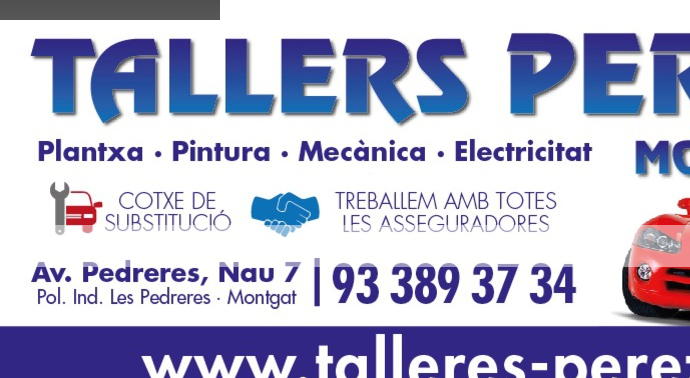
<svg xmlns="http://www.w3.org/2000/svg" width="690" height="378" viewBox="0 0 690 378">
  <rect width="100%" height="100%" fill="#e6e6e6"/>
  <image x="0" y="0" width="220" height="20" href="img/1.png"/>
  <path d="M220 0h470v20H220z" fill="#fff"/>
  <image x="0" y="20" width="690" height="358" href="img/2.png"/>
  <path d="M32 225h658v42H32z" fill="#ffffff80"/>
</svg>
